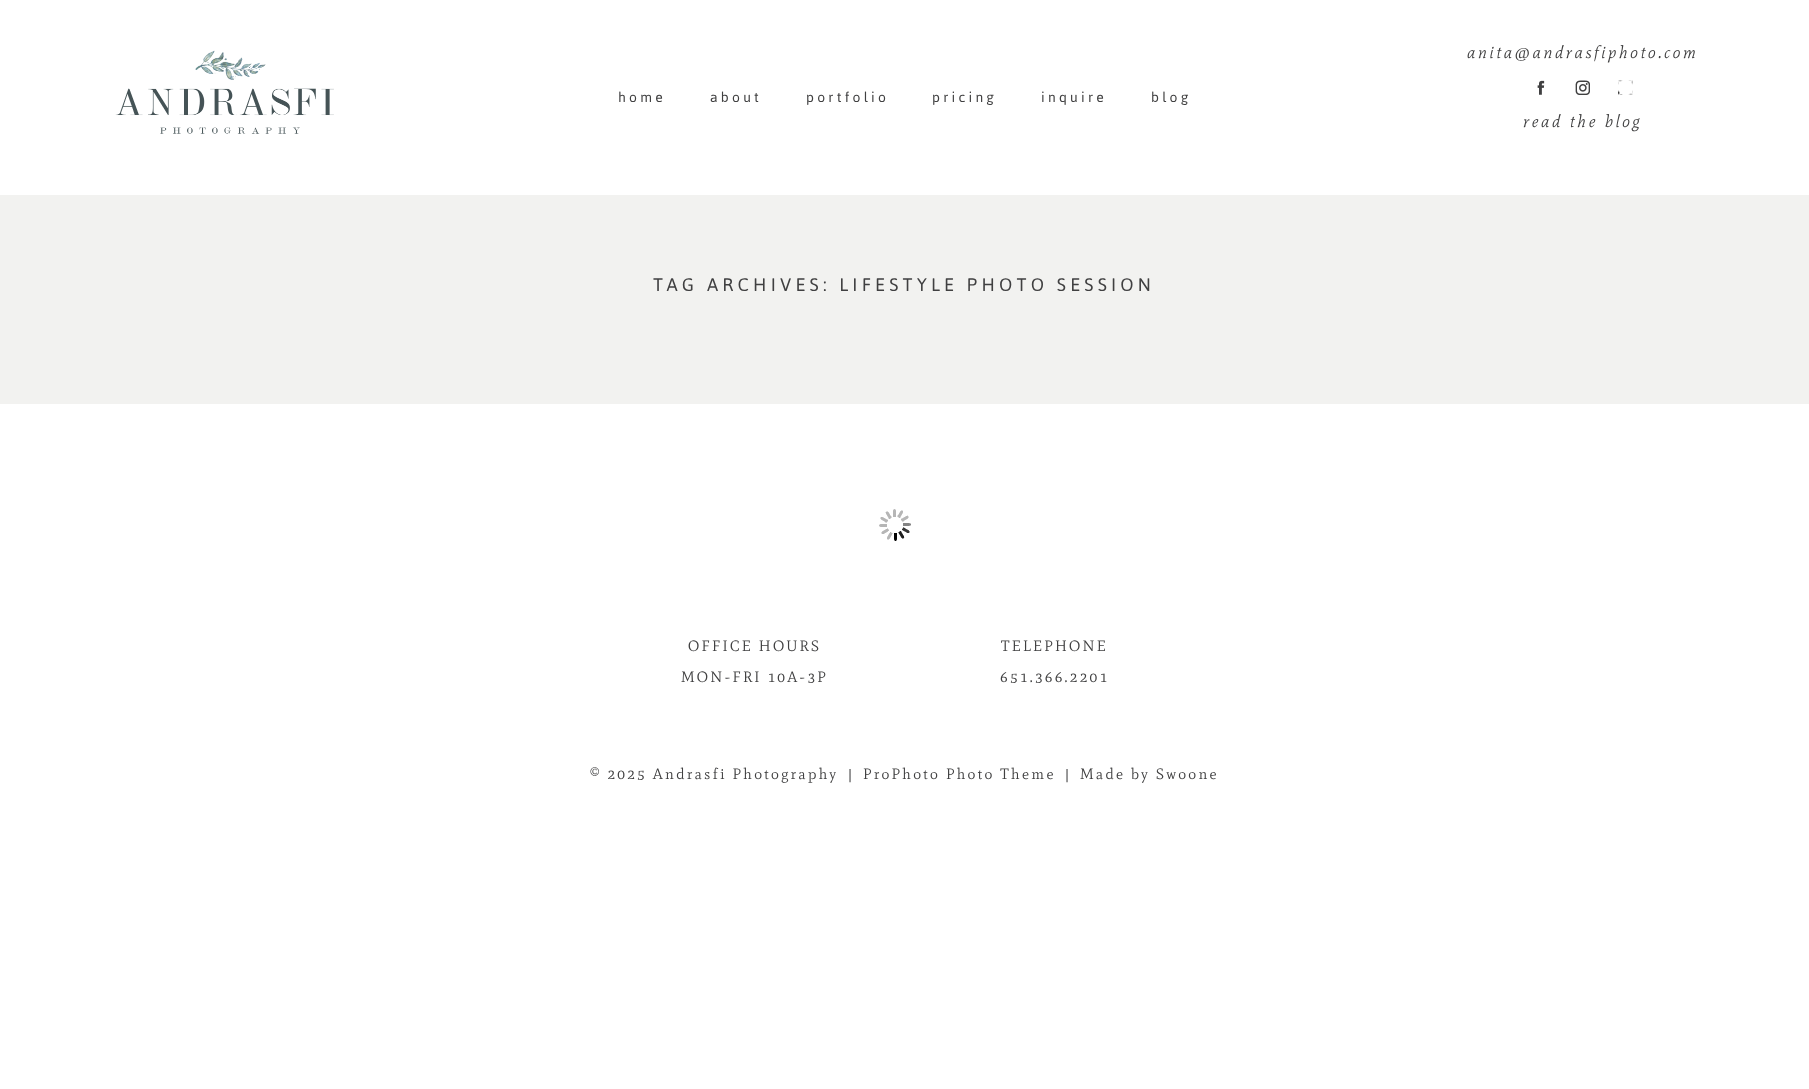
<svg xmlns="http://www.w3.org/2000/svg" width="1809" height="1089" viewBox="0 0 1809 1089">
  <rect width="100%" height="100%" fill="#fff"/>
  <image x="115" y="50" width="219" height="84" href="img/1.png"/>
  <image x="1537" y="80" width="8" height="15" href="img/2.png"/>
  <image x="1575" y="80" width="15" height="15" href="img/3.png"/>
  <image x="1618" y="80" width="15" height="15" href="img/4.png"/>
  <path d="M0 195h1809v209H0z" fill="#f2f2f0"/>
  <image x="879" y="509" width="32" height="32" href="img/5.png"/>
  <g font-family="Jaldi" font-size="16" letter-spacing="3.25" fill="#404041">
    <text x="618" y="102">home</text>
    <text x="710" y="102">about</text>
    <text x="806" y="102">portfolio</text>
    <text x="932" y="102">pricing</text>
    <text x="1041" y="102">inquire</text>
    <text x="1151" y="102">blog</text>
  </g>
  <g font-family="Mate" font-size="17" font-style="italic" letter-spacing="2.55" fill="#404041">
    <text x="1467" y="58">anita@andrasfiphoto.com</text>
    <text x="1523" y="127">read the blog</text>
  </g>
  <text x="653" y="291" font-family="Jaldi" font-size="21" letter-spacing="4.2" fill="#404041">TAG ARCHIVES: LIFESTYLE PHOTO SESSION</text>
  <g font-family="Mate" font-size="15" letter-spacing="2.25" fill="#404041">
    <text x="688" y="651">OFFICE HOURS</text>
    <text x="681" y="682">MON-FRI 10A-3P</text>
    <text x="1001" y="651">TELEPHONE</text>
    <text x="1000" y="682">651.366.2201</text>
    <text x="590" y="779">© 2025 Andrasfi Photography</text>
    <text x="848" y="779">|</text>
    <text x="863" y="779">ProPhoto Photo Theme</text>
    <text x="1065" y="779">|</text>
    <text x="1080" y="779">Made by Swoone</text>
  </g>
</svg>
